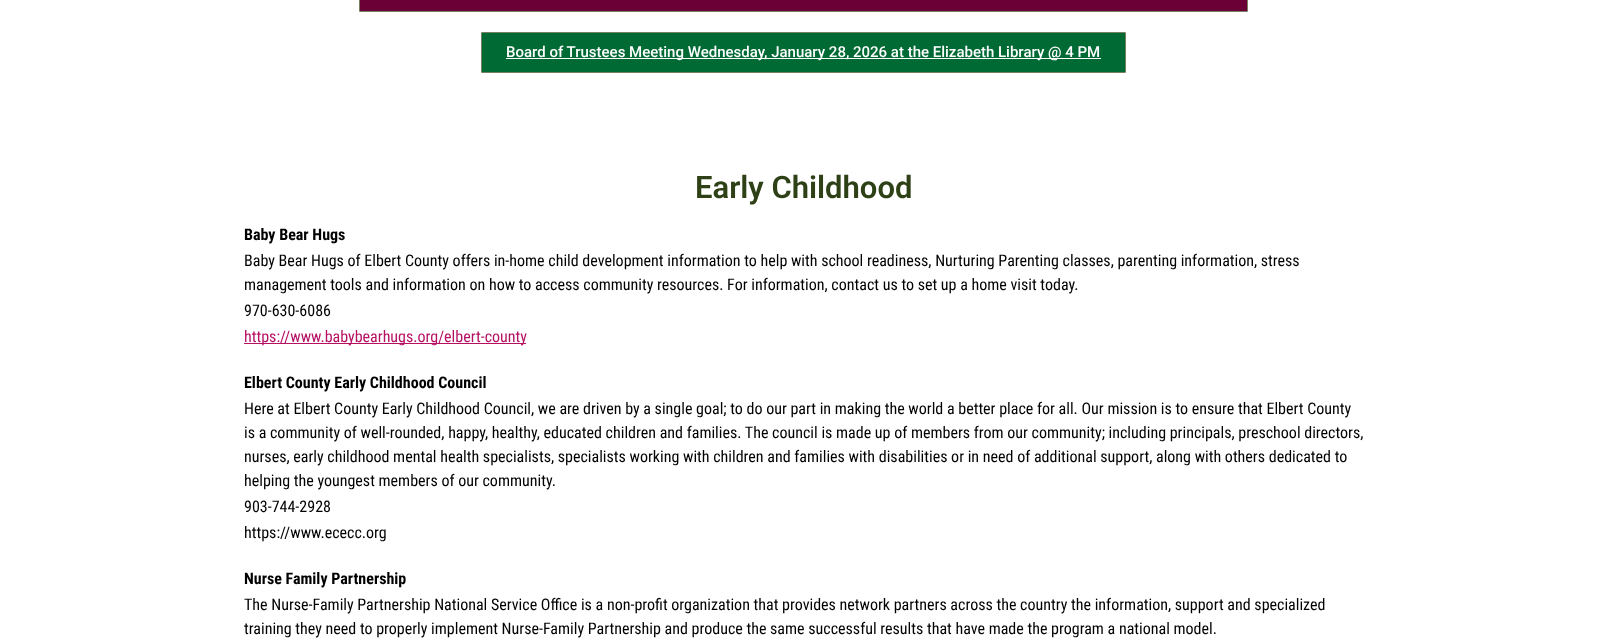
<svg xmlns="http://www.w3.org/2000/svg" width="1607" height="642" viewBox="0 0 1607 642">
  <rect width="100%" height="100%" fill="#fff"/>
  <rect x="359.5" y="-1.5" width="888" height="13" rx="0.5" fill="#6a0035" stroke="#758061"/>
  <rect x="481.5" y="32.5" width="644" height="40" rx="0.5" fill="#006a35" stroke="#758061"/>
  <path d="M506 58h595v1H506z" fill="#fff"/>
  <path d="M244 343h282v1H244z" fill="#b61063"/>
  <text x="506" y="57" font-family="Roboto" font-size="15" font-weight="500" fill="#fff">Board of Trustees Meeting Wednesday, January 28, 2026 at the Elizabeth Library @ 4 PM</text>
  <text x="695" y="198" font-family="Roboto" font-size="31" font-weight="600" fill="#2e4016">Early Childhood</text>
  <text x="244" y="240" font-family="Roboto Condensed" font-size="16" font-weight="bold" fill="#000">Baby Bear Hugs</text>
  <g font-family="Roboto Condensed" font-size="16" fill="#000">
    <text x="244" y="266">Baby Bear Hugs of Elbert County offers in-home child development information to help with school readiness, Nurturing Parenting classes, parenting information, stress</text>
    <text x="244" y="290">management tools and information on how to access community resources. For information, contact us to set up a home visit today.</text>
    <text x="244" y="316">970-630-6086</text>
  </g>
  <text x="244" y="342" font-family="Roboto Condensed" font-size="16" fill="#b61063">https://www.babybearhugs.org/elbert-county</text>
  <text x="244" y="388" font-family="Roboto Condensed" font-size="16" font-weight="bold" fill="#000">Elbert County Early Childhood Council</text>
  <g font-family="Roboto Condensed" font-size="16" fill="#000">
    <text x="244" y="414">Here at Elbert County Early Childhood Council, we are driven by a single goal; to do our part in making the world a better place for all. Our mission is to ensure that Elbert County</text>
    <text x="244" y="438">is a community of well-rounded, happy, healthy, educated children and families. The council is made up of members from our community; including principals, preschool directors,</text>
    <text x="244" y="462">nurses, early childhood mental health specialists, specialists working with children and families with disabilities or in need of additional support, along with others dedicated to</text>
    <text x="244" y="486">helping the youngest members of our community.</text>
    <text x="244" y="512">903-744-2928</text>
    <text x="244" y="538">https://www.ececc.org</text>
  </g>
  <text x="244" y="584" font-family="Roboto Condensed" font-size="16" font-weight="bold" fill="#000">Nurse Family Partnership</text>
  <g font-family="Roboto Condensed" font-size="16" fill="#000">
    <text x="244" y="610">The Nurse-Family Partnership National Service Office is a non-profit organization that provides network partners across the country the information, support and specialized</text>
    <text x="244" y="634">training they need to properly implement Nurse-Family Partnership and produce the same successful results that have made the program a national model.</text>
  </g>
</svg>
